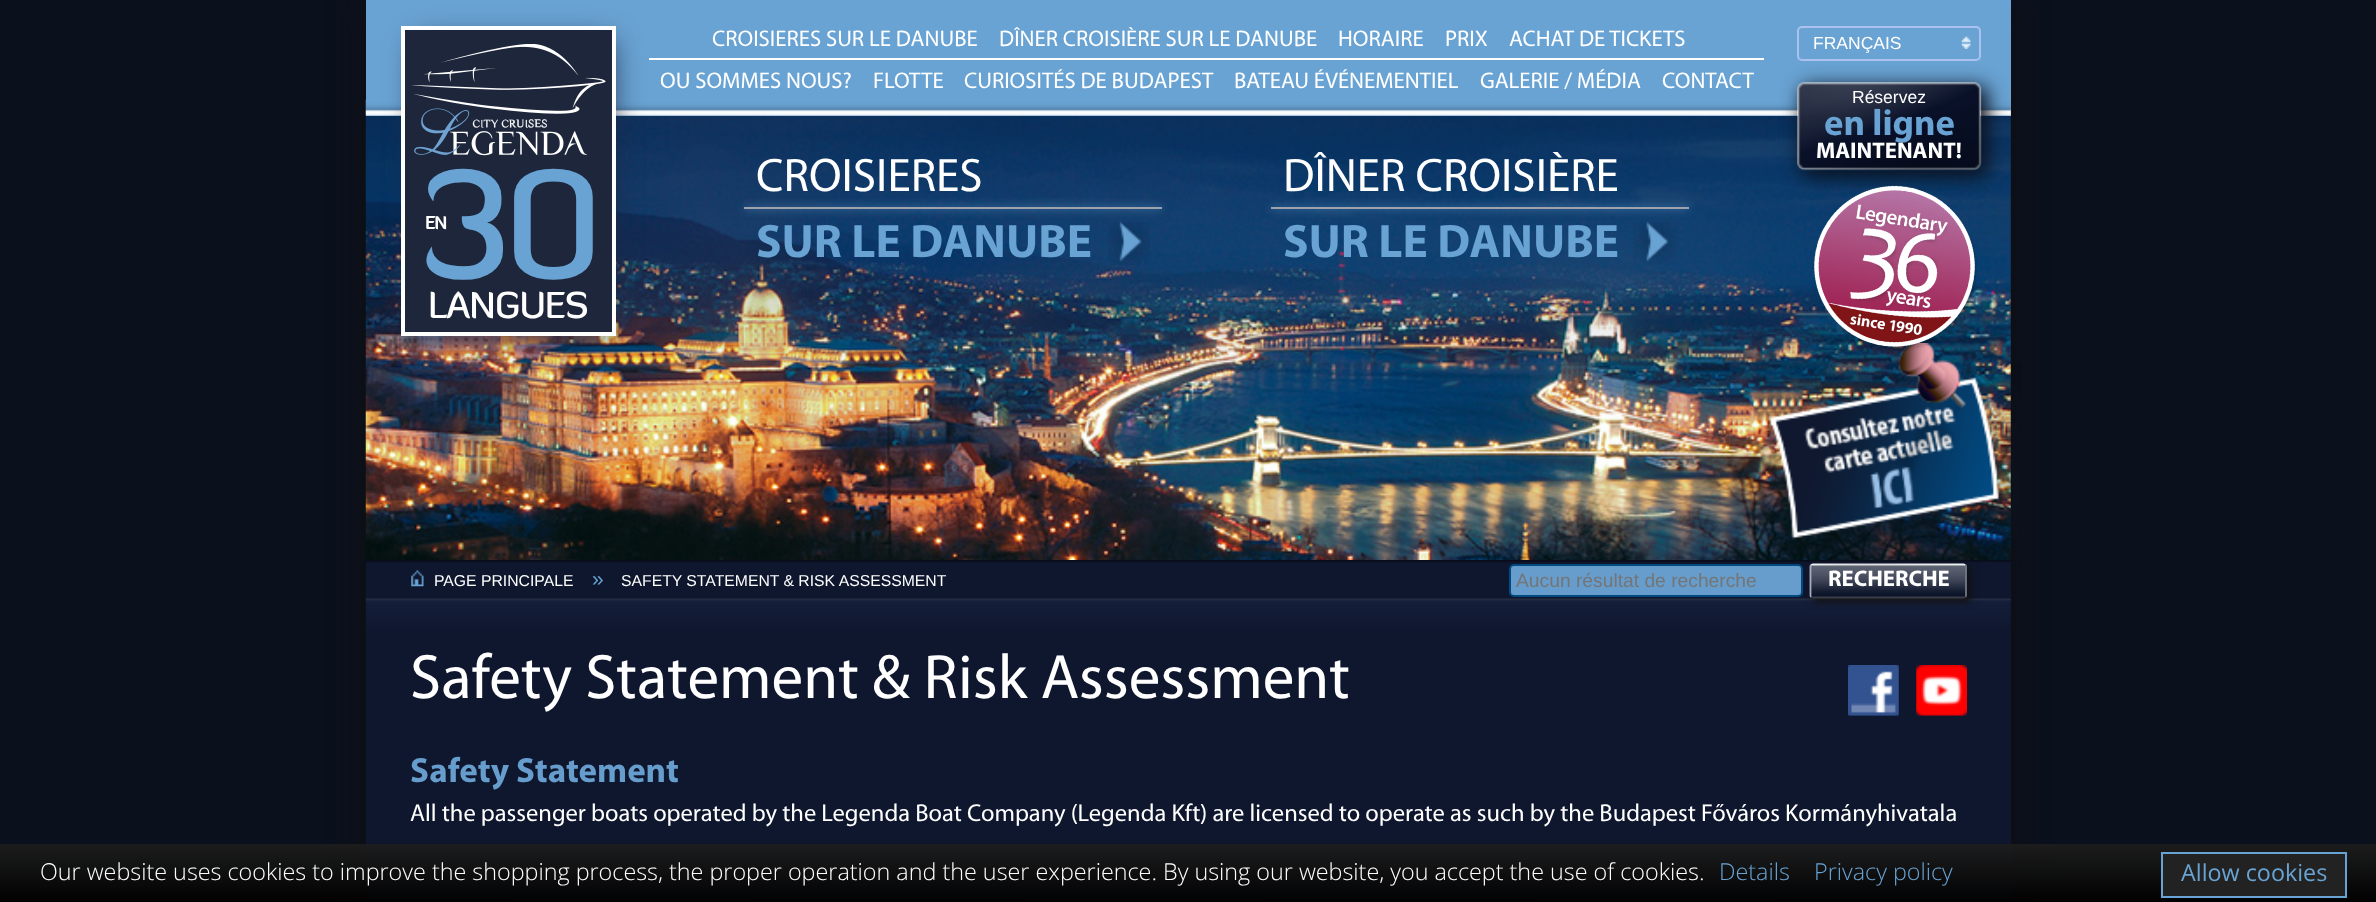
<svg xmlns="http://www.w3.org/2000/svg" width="2376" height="902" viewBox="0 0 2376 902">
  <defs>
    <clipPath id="clip1"><path d="M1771 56H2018V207H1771ZM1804 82H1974C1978 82 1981 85 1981 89V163C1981 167 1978 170 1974 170H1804C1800 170 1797 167 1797 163V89C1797 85 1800 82 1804 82Z" clip-rule="evenodd"/></clipPath>
    <linearGradient id="g1" gradientUnits="userSpaceOnUse" x1="1194" y1="843" x2="1194" y2="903"><stop offset="0" stop-color="#1e1e1e" stop-opacity="0.95"/><stop offset="1" stop-color="#000" stop-opacity="0.95"/></linearGradient>
  </defs>
  <rect width="100%" height="100%" fill="#0b101d"/>
  <path d="M366 0h1645v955H366z" fill="#0f0f0f" filter="blur(17.5px)"/>
  <path d="M366 116h1645v786H366z" fill="#0f172e"/>
  <image x="365" y="115" width="1646" height="445" href="img/5.png"/>
  <path d="M366 0h1645v116H366z" fill="#69a3d3"/>
  <image x="365" y="99" width="1646" height="17" href="img/1.png"/>
  <path d="M649 58h1115v2H649z" fill="#fff"/>
  <g clip-path="url(#clip1)">
    <rect x="1801" y="86" width="187" height="91" rx="9" fill="#0b101d" filter="blur(9.5px)"/>
  </g>
  <rect x="1798" y="27" width="182" height="33" rx="4" fill="none" stroke="#adc1f1" stroke-width="2"/>
  <image x="1961" y="36" width="10" height="13" href="img/2.png"/>
  <image x="1797" y="82" width="185" height="89" href="img/3.png"/>
  <path d="M417 42h194v289H417z" fill="#1e2a48" filter="blur(15px)"/>
  <path d="M403 28h211v306H403z" fill="#1d263a" stroke="#fff" stroke-width="4"/>
  <image x="411" y="44" width="195" height="112" href="img/4.png"/>
  <path d="M744 207h418v2H744z" fill="#69a3d3" filter="blur(4.5px)"/>
  <path d="M744 207h418v2H744z" fill="#9da2ac"/>
  <image x="1108" y="222" width="42" height="43" href="img/6.png"/>
  <path d="M1271 207h418v2H1271z" fill="#69a3d3" filter="blur(4.5px)"/>
  <path d="M1271 207h418v2H1271z" fill="#9da2ac"/>
  <image x="1633" y="222" width="44" height="43" href="img/7.png"/>
  <image x="365" y="560" width="1646" height="75" href="img/10.png"/>
  <rect x="1510" y="565" width="292" height="31" rx="4" fill="#669dcd" stroke="#004a80" stroke-width="2"/>
  <rect x="1813" y="567" width="158" height="35" rx="4" fill="#111" filter="blur(3.5px)"/>
  <image x="1809" y="564" width="158" height="34" href="img/12.png"/>
  <path d="M1811 565L1813 564.5H1963.5L1965.5 565" fill="none" stroke="#fff" stroke-width="1.8"/>
  <path d="M1965.5 565C1966 565.5 1966 566.5 1966 567V595C1966 595.5 1966 596.5 1965.5 597" fill="none" stroke="#727788" stroke-width="1.8"/>
  <path d="M1965.5 597L1963.5 597.5H1813L1811 597" fill="none" stroke="#3a3e49" stroke-width="1.8"/>
  <path d="M1811 597C1810.5 596.5 1810.5 595.5 1810.5 595V567C1810.5 566.5 1810.5 565.5 1811 565" fill="none" stroke="#a7adbc" stroke-width="1.8"/>
  <image x="1769" y="343" width="253" height="223" href="img/9.png"/>
  <image x="1814" y="185" width="163" height="166" href="img/8.png"/>
  <image x="411" y="570" width="13" height="17" href="img/11.png"/>
  <image x="1848" y="665" width="51" height="51" href="img/13.png"/>
  <image x="1916" y="665" width="51" height="51" href="img/14.png"/>
  <path d="M0 844h2376v58H0z" fill="url(#g1)"/>
  <path d="M2162 853h184v44H2162z" fill="#222" stroke="#69a3d3" stroke-width="2"/>
  <g font-family="Myriad" font-size="22.75" fill="#fff">
    <text x="712" y="46">CROISIERES SUR LE DANUBE</text>
    <text x="999" y="46">DÎNER CROISIÈRE SUR LE DANUBE</text>
    <text x="1338" y="46">HORAIRE</text>
    <text x="1445" y="46">PRIX</text>
    <text x="1509" y="46">ACHAT DE TICKETS</text>
    <text x="660" y="88">OU SOMMES NOUS?</text>
    <text x="873" y="88">FLOTTE</text>
    <text x="964" y="88">CURIOSITÉS DE BUDAPEST</text>
    <text x="1234" y="88">BATEAU ÉVÉNEMENTIEL</text>
    <text x="1480" y="88">GALERIE / MÉDIA</text>
    <text x="1662" y="88">CONTACT</text>
  </g>
  <g font-family="Liberation Sans" font-size="17.5" fill="#fff">
    <text x="1813" y="49">FRANÇAIS</text>
    <text x="1852" y="103">Réservez</text>
  </g>
  <text x="1824" y="135" font-family="Myriad" font-size="36.75" font-weight="bold" fill="#69a3d3">en ligne</text>
  <text x="1816" y="158" font-family="Myriad" font-size="22.75" font-weight="bold" fill="#fff">MAINTENANT!</text>
  <text x="418" y="278" font-family="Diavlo" font-size="152" font-weight="500" letter-spacing="-7" fill="#69a3d3">30</text>
  <text x="425" y="229" font-family="Diavlo" font-size="17.5" font-weight="bold" letter-spacing="-1" fill="#fff">EN</text>
  <text x="428" y="318" font-family="Diavlo" font-size="36.75" font-weight="500" letter-spacing="-1" fill="#fff">LANGUES</text>
  <text x="756" y="191" font-family="Myriad" font-size="47.25" fill="#fff">CROISIERES</text>
  <text x="756" y="257" font-family="Myriad" font-size="47.25" font-weight="bold" fill="#69a3d3">SUR LE DANUBE</text>
  <text x="1283" y="191" font-family="Myriad" font-size="47.25" fill="#fff">DÎNER CROISIÈRE</text>
  <text x="1283" y="257" font-family="Myriad" font-size="47.25" font-weight="bold" fill="#69a3d3">SUR LE DANUBE</text>
  <text x="434" y="586" font-family="Liberation Sans" font-size="15.75" fill="#fff">PAGE PRINCIPALE</text>
  <text x="592" y="586" font-family="Liberation Sans" font-size="21" fill="#69a3d3">»</text>
  <text x="621" y="586" font-family="Liberation Sans" font-size="15.75" fill="#fff">SAFETY STATEMENT &amp; RISK ASSESSMENT</text>
  <text x="1516" y="587" font-family="Liberation Sans" font-size="19.25" fill="#757575">Aucun résultat de recherche</text>
  <text x="1828" y="586" font-family="Myriad" font-size="22.75" font-weight="bold" fill="#fff">RECHERCHE</text>
  <text x="410" y="698" font-family="Myriad" font-size="63" fill="#fff">Safety Statement &amp; Risk Assessment</text>
  <text x="410" y="782" font-family="Myriad" font-size="35" font-weight="bold" fill="#669dcd">Safety Statement</text>
  <text x="410" y="821" font-family="Myriad" font-size="24.5" fill="#fff">All the passenger boats operated by the Legenda Boat Company (Legenda Kft) are licensed to operate as such by the Budapest Főváros Kormányhivatala</text>
  <text x="40" y="880" font-family="Open Sans" font-size="23.33" font-weight="300" fill="#fff">Our website uses cookies to improve the shopping process, the proper operation and the user experience. By using our website, you accept the use of cookies.</text>
  <g font-family="Open Sans" font-size="23.33" font-weight="300" fill="#69a3d3">
    <text x="1719" y="880">Details</text>
    <text x="1814" y="880">Privacy policy</text>
  </g>
  <text x="2181" y="881" font-family="Open Sans" font-size="23.33" fill="#69a3d3">Allow cookies</text>
</svg>
